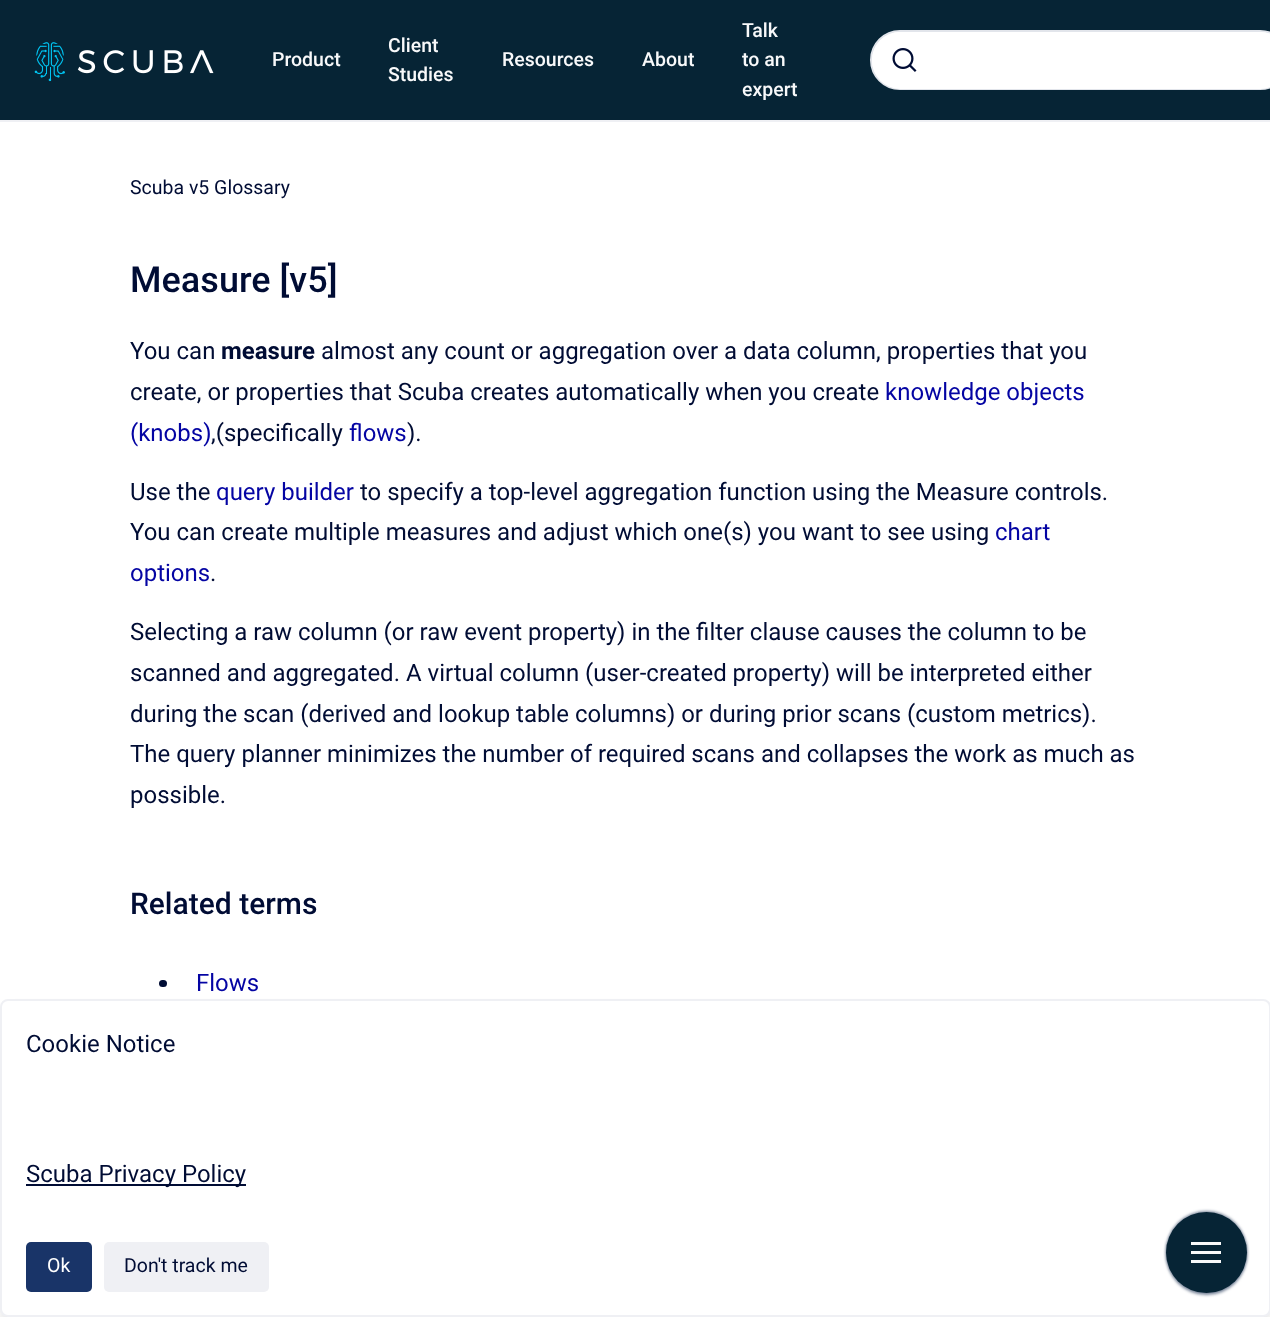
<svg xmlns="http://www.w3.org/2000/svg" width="1270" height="1317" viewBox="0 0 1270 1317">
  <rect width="100%" height="100%" fill="#fff"/>
  <path d="M0 0h1270v120H0z" fill="#062435"/>
  <path d="M0 120h1270v2H0z" fill="#eff0f4"/>
  <image x="34" y="42" width="180" height="40" href="img/1.png"/>
  <rect x="871" y="31" width="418" height="58" rx="29" fill="#fff" stroke="#e2e5eb" stroke-width="2"/>
  <rect x="872" y="32" width="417" height="57" rx="28.5" fill="#fff"/>
  <image x="892" y="48" width="25" height="24" href="img/2.png"/>
  <rect x="159" y="980" width="8" height="7" rx="3.5" fill="#000c34"/>
  <rect x="3" y="1008" width="1265" height="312" rx="5" fill="#0000000d" filter="blur(4.5px)"/>
  <rect x="5" y="1019" width="1261" height="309" rx="3" fill="#0000001a" filter="blur(11px)"/>
  <rect x="1" y="1000" width="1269" height="316" rx="7" fill="#fff" stroke="#eff0f4" stroke-width="2"/>
  <path d="M26 1184h220v2H26z" fill="#000c34"/>
  <rect x="26" y="1242" width="66" height="50" rx="5" fill="#193468"/>
  <rect x="104" y="1242" width="165" height="50" rx="5" fill="#eff0f4"/>
  <rect x="1166" y="1211" width="81" height="81" rx="40.5" fill="#7a869a" filter="blur(1.5px)"/>
  <rect x="1166" y="1214" width="81" height="81" rx="40.5" fill="#7a869a" filter="blur(1.5px)"/>
  <circle cx="1206.5" cy="1252.5" r="40.5" fill="#062435"/>
  <path d="M1191 1242h30v3H1191z" fill="#f8f9fa"/>
  <path d="M1191 1251h30v3H1191z" fill="#f8f9fa"/>
  <path d="M1191 1260h30v3H1191z" fill="#f8f9fa"/>
  <g font-family="Roboto" font-size="19.5" font-weight="500" fill="#f8f9fa">
    <text x="272" y="66">Product</text>
    <text x="388" y="52">Client</text>
    <text x="388" y="81">Studies</text>
    <text x="502" y="66">Resources</text>
    <text x="642" y="66">About</text>
    <text x="742" y="37">Talk</text>
    <text x="742" y="66">to an</text>
    <text x="742" y="96">expert</text>
  </g>
  <text x="130" y="194" font-family="Roboto" font-size="19.5" fill="#000c34">Scuba v5 Glossary</text>
  <text x="130" y="292" font-family="Roboto" font-size="36" font-weight="500" fill="#000c34">Measure [v5]</text>
  <text x="130" y="359" font-family="Roboto" font-size="24" fill="#000c34">You can</text>
  <text x="221" y="359" font-family="Roboto" font-size="24" font-weight="bold" fill="#000c34">measure</text>
  <g font-family="Roboto" font-size="24" fill="#000c34">
    <text x="321" y="359">almost any count or aggregation over a data column, properties that you</text>
    <text x="130" y="400">create, or properties that Scuba creates automatically when you create</text>
  </g>
  <g font-family="Roboto" font-size="24" fill="#0404a3">
    <text x="885" y="400">knowledge objects</text>
    <text x="130" y="441">(knobs)</text>
  </g>
  <text x="211" y="441" font-family="Roboto" font-size="24" fill="#000c34">,(specifically</text>
  <text x="349" y="441" font-family="Roboto" font-size="24" fill="#0404a3">flows</text>
  <g font-family="Roboto" font-size="24" fill="#000c34">
    <text x="407" y="441">).</text>
    <text x="130" y="500">Use the</text>
  </g>
  <text x="216" y="500" font-family="Roboto" font-size="24" fill="#0404a3">query builder</text>
  <g font-family="Roboto" font-size="24" fill="#000c34">
    <text x="360" y="500">to specify a top-level aggregation function using the Measure controls.</text>
    <text x="130" y="540">You can create multiple measures and adjust which one(s) you want to see using</text>
  </g>
  <g font-family="Roboto" font-size="24" fill="#0404a3">
    <text x="995" y="540">chart</text>
    <text x="130" y="581">options</text>
  </g>
  <g font-family="Roboto" font-size="24" fill="#000c34">
    <text x="210" y="581">.</text>
    <text x="130" y="640">Selecting a raw column (or raw event property) in the filter clause causes the column to be</text>
    <text x="130" y="681">scanned and aggregated. A virtual column (user-created property) will be interpreted either</text>
    <text x="130" y="722">during the scan (derived and lookup table columns) or during prior scans (custom metrics).</text>
    <text x="130" y="762">The query planner minimizes the number of required scans and collapses the work as much as</text>
    <text x="130" y="803">possible.</text>
  </g>
  <text x="130" y="914" font-family="Roboto" font-size="30" font-weight="500" fill="#000c34">Related terms</text>
  <text x="196" y="991" font-family="Roboto" font-size="24" fill="#0404a3">Flows</text>
  <g font-family="Roboto" font-size="24" fill="#000c34">
    <text x="26" y="1052">Cookie Notice</text>
    <text x="26" y="1182">Scuba Privacy Policy</text>
  </g>
  <text x="47" y="1272" font-family="Roboto" font-size="19.5" fill="#fff">Ok</text>
  <text x="124" y="1272" font-family="Roboto" font-size="19.5" fill="#000c34">Don't track me</text>
</svg>
